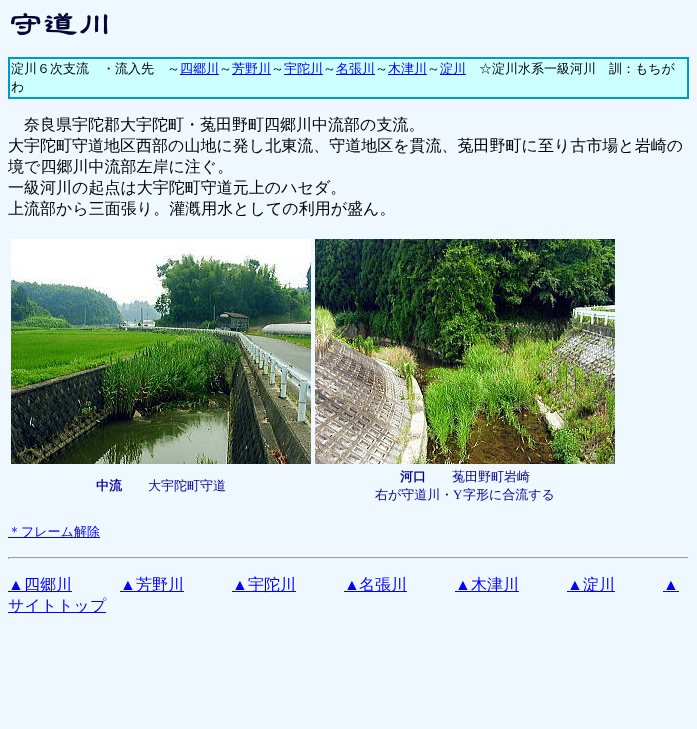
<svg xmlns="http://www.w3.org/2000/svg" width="697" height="729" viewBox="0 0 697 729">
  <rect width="100%" height="100%" fill="#f0f8ff"/>
  <image x="11" y="12" width="97" height="23" href="img/1.png"/>
  <path d="M8 57h681v42H8z" fill="#09c"/>
  <path d="M10 59h677v38H10z" fill="#cff"/>
  <path d="M180 74h39v1H180z" fill="#00f"/>
  <path d="M232 74h39v1H232z" fill="#00f"/>
  <path d="M284 74h39v1H284z" fill="#00f"/>
  <path d="M336 74h39v1H336z" fill="#00f"/>
  <path d="M388 74h39v1H388z" fill="#00f"/>
  <path d="M440 74h26v1H440z" fill="#00f"/>
  <image x="11" y="239" width="300" height="225" href="img/2.png"/>
  <image x="315" y="239" width="300" height="225" href="img/3.png"/>
  <path d="M8 537h92v1H8z" fill="#00f"/>
  <path d="M8 557h681v1H8z" fill="#9f9f9f"/>
  <path d="M688 557h1v2H688z" fill="#eee"/>
  <path d="M8 558h681v1H8z" fill="#eee"/>
  <path d="M8 557h1v2H8z" fill="#9f9f9f"/>
  <path d="M8 591h64v1H8z" fill="#00f"/>
  <path d="M120 591h64v1H120z" fill="#00f"/>
  <path d="M232 591h64v1H232z" fill="#00f"/>
  <path d="M344 591h63v1H344z" fill="#00f"/>
  <path d="M455 591h64v1H455z" fill="#00f"/>
  <path d="M567 591h48v1H567z" fill="#00f"/>
  <path d="M663 591h16v1H663z" fill="#00f"/>
  <path d="M8 612h98v1H8z" fill="#00f"/>
  <text x="11" y="73" font-family="WenQuanYi Zen Hei" font-size="13" font-weight="500" fill="#000">淀川６次支流　・流入先　～</text>
  <text x="180" y="73" font-family="WenQuanYi Zen Hei" font-size="13" font-weight="500" fill="#00f">四郷川</text>
  <text x="219" y="73" font-family="WenQuanYi Zen Hei" font-size="13" font-weight="500" fill="#000">～</text>
  <text x="232" y="73" font-family="WenQuanYi Zen Hei" font-size="13" font-weight="500" fill="#00f">芳野川</text>
  <text x="271" y="73" font-family="WenQuanYi Zen Hei" font-size="13" font-weight="500" fill="#000">～</text>
  <text x="284" y="73" font-family="WenQuanYi Zen Hei" font-size="13" font-weight="500" fill="#00f">宇陀川</text>
  <text x="323" y="73" font-family="WenQuanYi Zen Hei" font-size="13" font-weight="500" fill="#000">～</text>
  <text x="336" y="73" font-family="WenQuanYi Zen Hei" font-size="13" font-weight="500" fill="#00f">名張川</text>
  <text x="375" y="73" font-family="WenQuanYi Zen Hei" font-size="13" font-weight="500" fill="#000">～</text>
  <text x="388" y="73" font-family="WenQuanYi Zen Hei" font-size="13" font-weight="500" fill="#00f">木津川</text>
  <text x="427" y="73" font-family="WenQuanYi Zen Hei" font-size="13" font-weight="500" fill="#000">～</text>
  <text x="440" y="73" font-family="WenQuanYi Zen Hei" font-size="13" font-weight="500" fill="#00f">淀川</text>
  <g font-family="WenQuanYi Zen Hei" font-size="13" font-weight="500" fill="#000">
    <text x="479" y="73">☆淀川水系一級河川　訓：もちが</text>
    <text x="11" y="91">わ</text>
  </g>
  <g font-family="WenQuanYi Zen Hei" font-size="16" font-weight="500" fill="#000">
    <text x="24" y="130">奈良県宇陀郡大宇陀町・菟田野町四郷川中流部の支流。</text>
    <text x="8" y="151">大宇陀町守道地区西部の山地に発し北東流、守道地区を貫流、菟田野町に至り古市場と岩崎の</text>
    <text x="8" y="172">境で四郷川中流部左岸に注ぐ。</text>
    <text x="8" y="193">一級河川の起点は大宇陀町守道元上のハセダ。</text>
    <text x="8" y="214">上流部から三面張り。灌漑用水としての利用が盛ん。</text>
  </g>
  <text x="96" y="490" font-family="WenQuanYi Zen Hei" font-size="13" font-weight="bold" fill="#009">中流</text>
  <text x="148" y="490" font-family="WenQuanYi Zen Hei" font-size="13" font-weight="500" fill="#009">大宇陀町守道</text>
  <text x="400" y="481" font-family="WenQuanYi Zen Hei" font-size="13" font-weight="bold" fill="#009">河口</text>
  <g font-family="WenQuanYi Zen Hei" font-size="13" font-weight="500" fill="#009">
    <text x="452" y="481">菟田野町岩崎</text>
    <text x="375" y="499">右が守道川・</text>
  </g>
  <text x="453" y="499" font-family="Liberation Serif" font-size="13" fill="#009">Y</text>
  <text x="463" y="499" font-family="WenQuanYi Zen Hei" font-size="13" font-weight="500" fill="#009">字形に合流する</text>
  <text x="8" y="536" font-family="WenQuanYi Zen Hei" font-size="13" font-weight="500" fill="#00f">＊フレーム解除</text>
  <text x="8" y="590" font-family="Liberation Serif" font-size="16" fill="#00f">▲</text>
  <text x="24" y="590" font-family="WenQuanYi Zen Hei" font-size="16" font-weight="500" fill="#00f">四郷川</text>
  <text x="120" y="590" font-family="Liberation Serif" font-size="16" fill="#00f">▲</text>
  <text x="136" y="590" font-family="WenQuanYi Zen Hei" font-size="16" font-weight="500" fill="#00f">芳野川</text>
  <text x="232" y="590" font-family="Liberation Serif" font-size="16" fill="#00f">▲</text>
  <text x="248" y="590" font-family="WenQuanYi Zen Hei" font-size="16" font-weight="500" fill="#00f">宇陀川</text>
  <text x="344" y="590" font-family="Liberation Serif" font-size="16" fill="#00f">▲</text>
  <text x="359" y="590" font-family="WenQuanYi Zen Hei" font-size="16" font-weight="500" fill="#00f">名張川</text>
  <text x="455" y="590" font-family="Liberation Serif" font-size="16" fill="#00f">▲</text>
  <text x="471" y="590" font-family="WenQuanYi Zen Hei" font-size="16" font-weight="500" fill="#00f">木津川</text>
  <text x="567" y="590" font-family="Liberation Serif" font-size="16" fill="#00f">▲</text>
  <text x="583" y="590" font-family="WenQuanYi Zen Hei" font-size="16" font-weight="500" fill="#00f">淀川</text>
  <text x="663" y="590" font-family="Liberation Serif" font-size="16" fill="#00f">▲</text>
  <text x="8" y="611" font-family="WenQuanYi Zen Hei" font-size="16" font-weight="500" fill="#00f">サイトトップ</text>
</svg>
